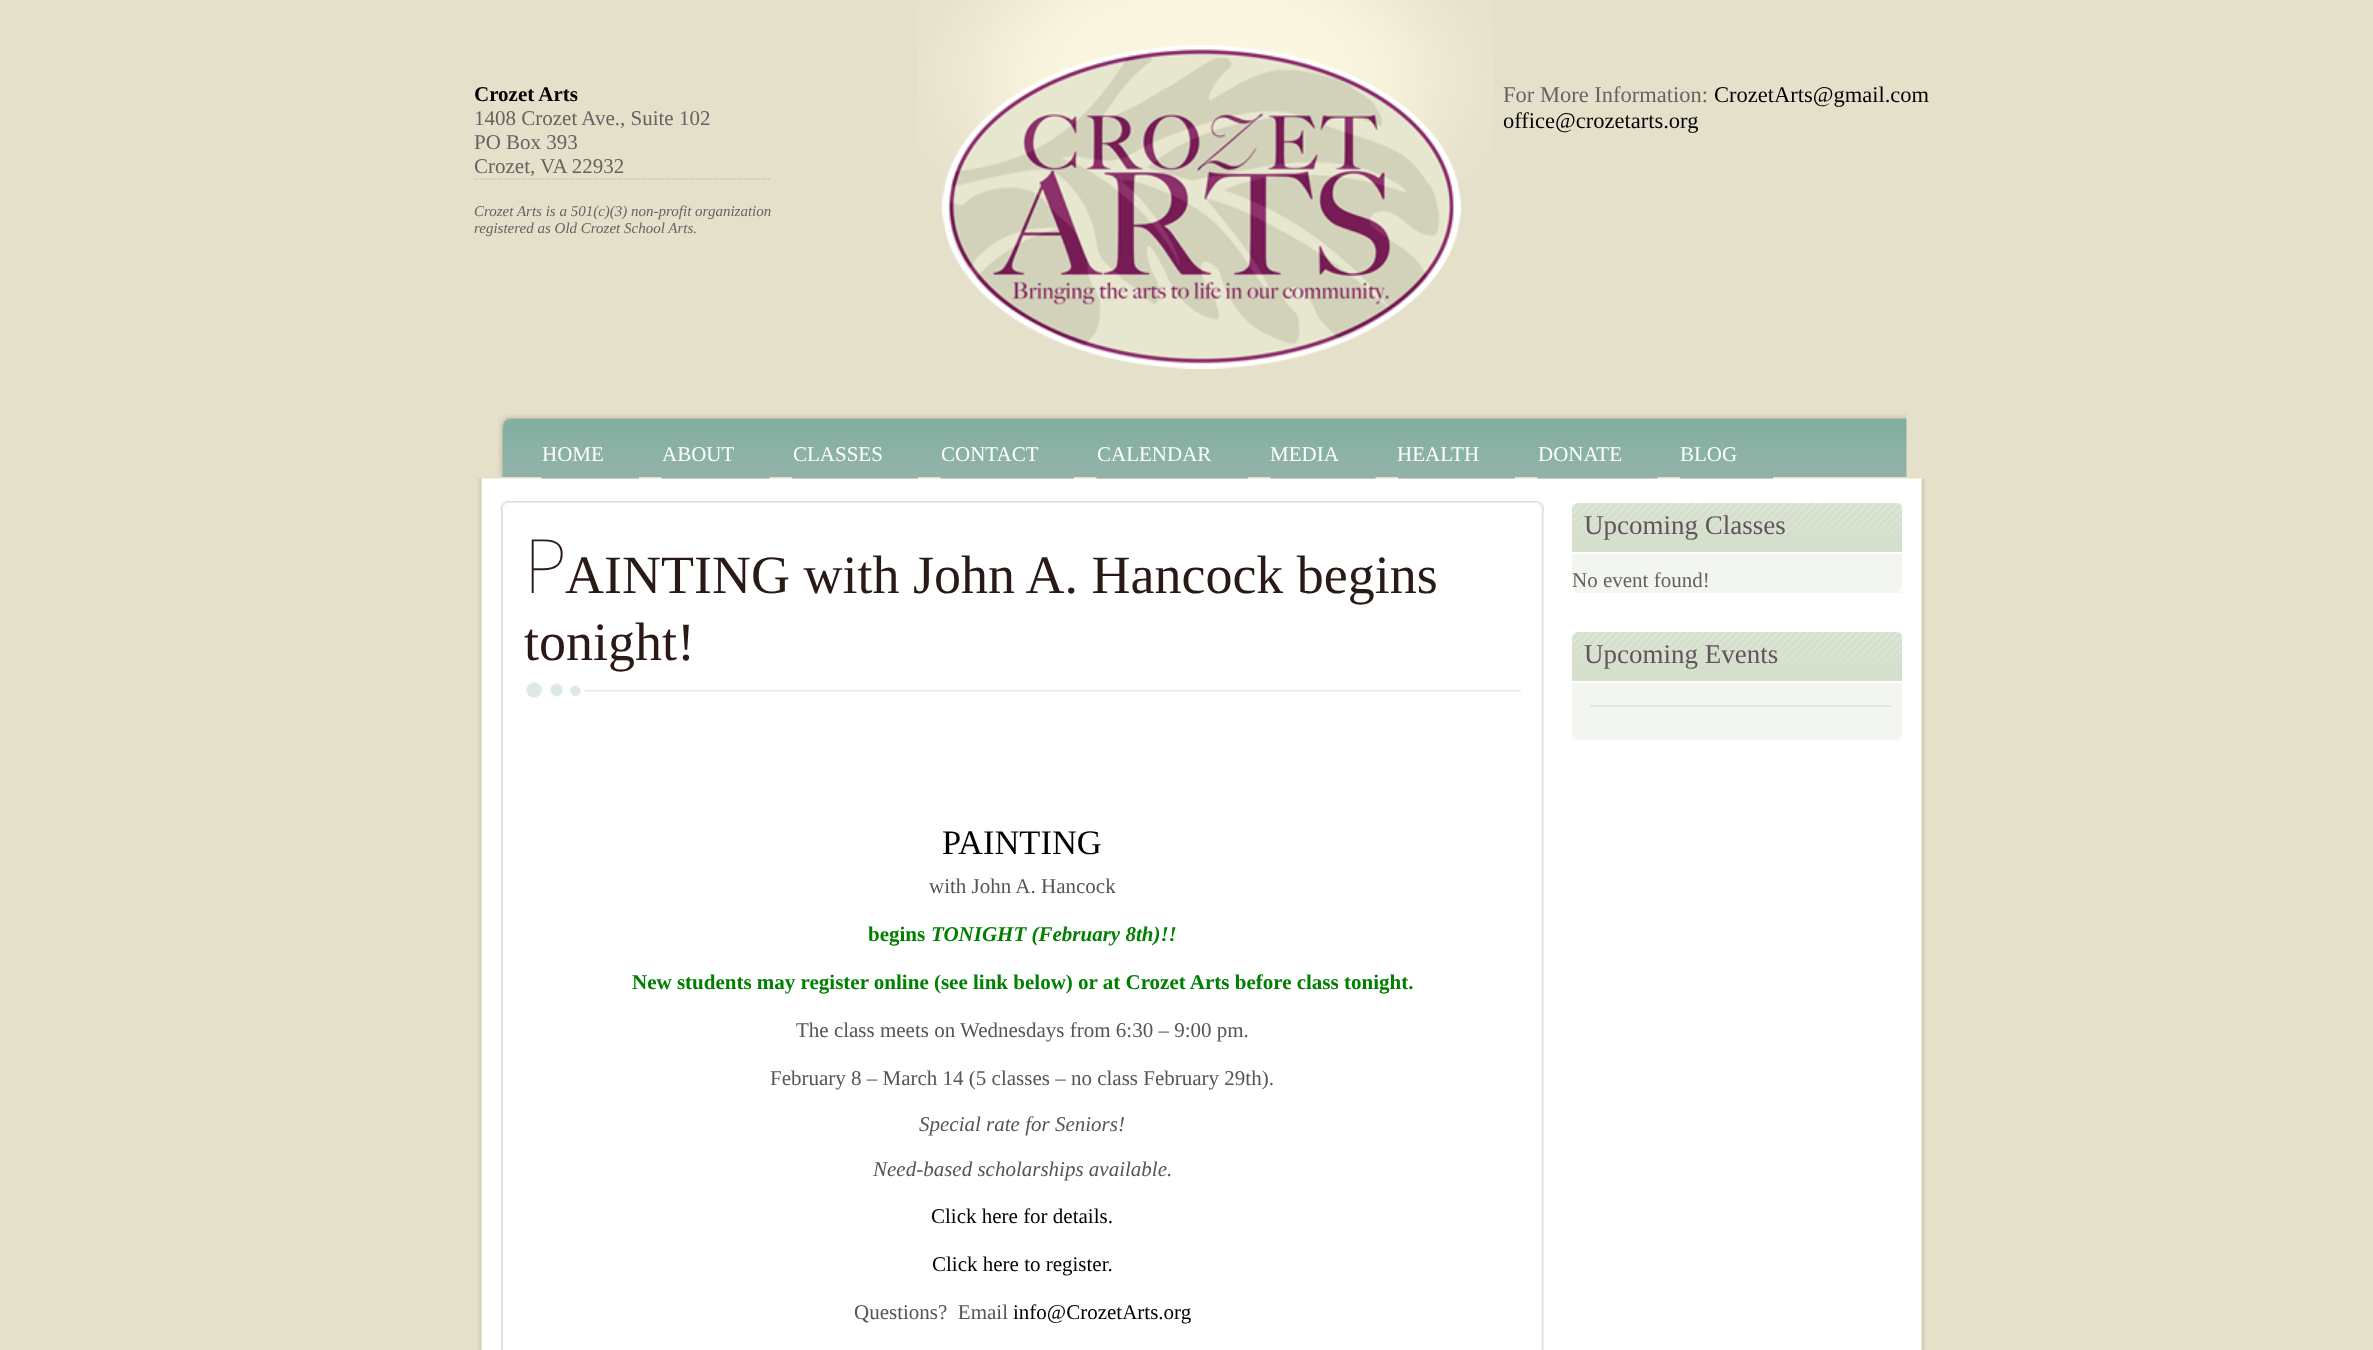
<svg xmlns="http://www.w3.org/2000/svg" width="2373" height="1350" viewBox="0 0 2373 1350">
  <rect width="100%" height="100%" fill="#e5e0ca"/>
  <image x="917" y="0" width="576" height="185" href="img/1.png"/>
  <path d="M474 179H771" fill="none" stroke="#c5c2b9" stroke-width="1.5" stroke-dasharray="1.5 1.5"/>
  <image x="942" y="45" width="519" height="324" href="img/2.png"/>
  <image x="498" y="414" width="1409" height="63" href="img/3.png"/>
  <image x="477" y="478" width="1449" height="872" href="img/13.png"/>
  <image x="541" y="477" width="98" height="2" href="img/4.png"/>
  <image x="661" y="477" width="109" height="2" href="img/5.png"/>
  <image x="792" y="477" width="126" height="2" href="img/6.png"/>
  <image x="940" y="477" width="134" height="2" href="img/7.png"/>
  <image x="1096" y="477" width="152" height="2" href="img/8.png"/>
  <image x="1270" y="477" width="106" height="2" href="img/9.png"/>
  <image x="1398" y="477" width="117" height="2" href="img/10.png"/>
  <image x="1537" y="477" width="121" height="2" href="img/11.png"/>
  <image x="1680" y="477" width="93" height="2" href="img/12.png"/>
  <image x="501" y="501" width="1043" height="849" href="img/14.png"/>
  <image x="501" y="501" width="1043" height="11" href="img/15.png"/>
  <image x="526" y="682" width="995" height="16" href="img/16.png"/>
  <path d="M1572 554h330v39H1572z" fill="#f2f5f0"/>
  <image x="1572" y="587" width="330" height="6" href="img/17.png"/>
  <path d="M1572 538h330v14H1572z" fill="#d4dfcc"/>
  <image x="1572" y="503" width="330" height="35" href="img/18.png"/>
  <path d="M1572 683h330v57H1572z" fill="#f2f5f0"/>
  <image x="1572" y="734" width="330" height="6" href="img/17.png"/>
  <path d="M1572 667h330v14H1572z" fill="#d4dfcc"/>
  <image x="1572" y="632" width="330" height="35" href="img/18.png"/>
  <path d="M1590 705h302v2H1590z" fill="#e1e9db"/>
  <text x="474" y="101" font-family="Liberation Serif" font-size="21" font-weight="bold" fill="#000">Crozet Arts</text>
  <g font-family="Liberation Serif" font-size="21" fill="#6a5f63">
    <text x="474" y="125">1408 Crozet Ave., Suite 102</text>
    <text x="474" y="149">PO Box 393</text>
    <text x="474" y="173">Crozet, VA 22932</text>
  </g>
  <g font-family="Liberation Serif" font-size="15" font-style="italic" fill="#6a5f63">
    <text x="474" y="216">Crozet Arts is a 501(c)(3) non-profit organization</text>
    <text x="474" y="233">registered as Old Crozet School Arts.</text>
  </g>
  <text x="1503" y="102" font-family="Liberation Serif" font-size="22.5" fill="#6a5f63">For More Information:</text>
  <g font-family="Liberation Serif" font-size="22.5" fill="#000">
    <text x="1714" y="102">CrozetArts@gmail.com</text>
    <text x="1503" y="128">office@crozetarts.org</text>
  </g>
  <g font-family="Liberation Serif" font-size="21" fill="#fff">
    <text x="542" y="461">HOME</text>
    <text x="662" y="461">ABOUT</text>
    <text x="793" y="461">CLASSES</text>
    <text x="941" y="461">CONTACT</text>
    <text x="1097" y="461">CALENDAR</text>
    <text x="1270" y="461">MEDIA</text>
    <text x="1397" y="461">HEALTH</text>
    <text x="1538" y="461">DONATE</text>
    <text x="1680" y="461">BLOG</text>
  </g>
  <text x="524" y="593" font-family="Noto Sans" font-size="75" font-weight="100" fill="#291a17">P</text>
  <g font-family="Liberation Serif" font-size="54" fill="#291a17">
    <text x="565" y="593">AINTING with John A. Hancock begins</text>
    <text x="524" y="660">tonight!</text>
  </g>
  <text x="942" y="854" font-family="Liberation Serif" font-size="34.5" fill="#000">PAINTING</text>
  <text x="929" y="893" font-family="Liberation Serif" font-size="21" fill="#555">with John A. Hancock</text>
  <text x="868" y="941" font-family="Liberation Serif" font-size="21" font-weight="bold" fill="#008000">begins</text>
  <text x="931" y="941" font-family="Liberation Serif" font-size="21" font-weight="bold" font-style="italic" fill="#008000">TONIGHT (February 8th)!!</text>
  <text x="632" y="989" font-family="Liberation Serif" font-size="21" font-weight="bold" fill="#008000">New students may register online (see link below) or at Crozet Arts before class tonight.</text>
  <g font-family="Liberation Serif" font-size="21" fill="#555">
    <text x="796" y="1037">The class meets on Wednesdays from 6:30 – 9:00 pm.</text>
    <text x="770" y="1085">February 8 – March 14 (5 classes – no class February 29th).</text>
  </g>
  <g font-family="Liberation Serif" font-size="21" font-style="italic" fill="#555">
    <text x="919" y="1131">Special rate for Seniors!</text>
    <text x="873" y="1176">Need-based scholarships available.</text>
  </g>
  <g font-family="Liberation Serif" font-size="21" fill="#000">
    <text x="931" y="1223">Click here for details.</text>
    <text x="932" y="1271">Click here to register.</text>
  </g>
  <text x="854" y="1319" font-family="Liberation Serif" font-size="21" fill="#555" xml:space="preserve">Questions?  Email</text>
  <text x="1013" y="1319" font-family="Liberation Serif" font-size="21" fill="#000">info@CrozetArts.org</text>
  <text x="1584" y="534" font-family="Liberation Serif" font-size="27" fill="#615559">Upcoming Classes</text>
  <text x="1572" y="587" font-family="Liberation Serif" font-size="21" fill="#626262">No event found!</text>
  <text x="1584" y="663" font-family="Liberation Serif" font-size="27" fill="#615559">Upcoming Events</text>
</svg>
